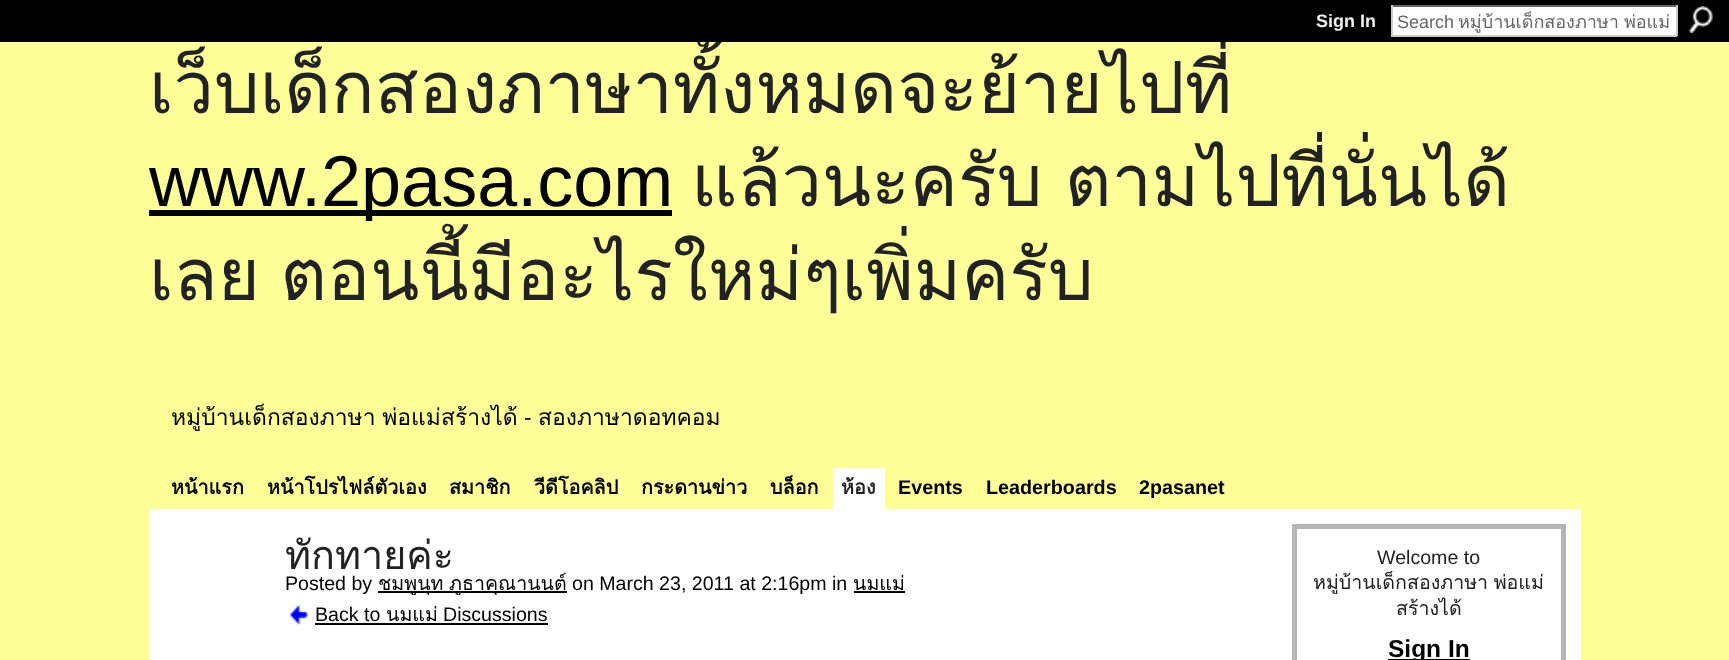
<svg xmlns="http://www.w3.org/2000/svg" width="1729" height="660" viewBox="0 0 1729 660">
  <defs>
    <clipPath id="clip1"><path d="M149 42h1432v288H149z"/></clipPath>
  </defs>
  <rect width="100%" height="100%" fill="#ff9"/>
  <path d="M0 0h1729v42H0z" fill="#000"/>
  <path d="M1393 7h283v28H1393z" fill="#fff"/>
  <path d="M1391 5h286v2H1391z" fill="#666"/>
  <path d="M1676 5h2v31H1676z" fill="#ccc"/>
  <path d="M1391 35h286v2H1391z" fill="#ccc"/>
  <path d="M1391 5h2v31H1391z" fill="#ccc"/>
  <image x="1689" y="6" width="24" height="27" href="img/1.png"/>
  <path d="M149 210h523v6H149z" fill="#000"/>
  <path d="M833 468h52v41H833z" fill="#fff"/>
  <path d="M149 509h1432v151H149z" fill="#fff"/>
  <path d="M378 591h189v2H378z" fill="#000"/>
  <path d="M854 591h51v2H854z" fill="#000"/>
  <image x="289" y="604" width="19" height="21" href="img/2.png"/>
  <path d="M315 623h233v2H315z" fill="#000"/>
  <path d="M1294.5 526.5h269v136H1294.5z" fill="none" stroke="#b5b5b5" stroke-width="5"/>
  <path d="M1388 659h82v1H1388z" fill="#000"/>
  <text x="1316" y="27" font-family="Liberation Sans" font-size="18" font-weight="bold" fill="#eee">Sign In</text>
  <text x="1397" y="28" font-family="Liberation Sans" font-size="18" fill="#666">Search</text>
  <text x="1458" y="28" word-spacing="-1" font-family="Loma" font-size="18" fill="#666">หมู่บ้านเด็กสองภาษา พ่อแม่</text>
  <g clip-path="url(#clip1)">
    <text x="149" y="113" font-family="Loma" font-size="72" fill="#222">เว็บเด็กสองภาษาทั้งหมดจะย้ายไปที่</text>
  </g>
  <text x="149" y="206" font-family="Liberation Sans" font-size="72" fill="#000">www.2pasa.com</text>
  <g font-family="Loma" font-size="72" fill="#222">
    <text x="691" y="206" word-spacing="-2">แล้วนะครับ ตามไปที่นั่นได้</text>
    <text x="149" y="300" word-spacing="-4">เลย ตอนนี้มีอะไรใหม่ๆเพิ่มครับ</text>
  </g>
  <text x="171" y="425" word-spacing="-1" font-family="Loma" font-size="22.9" fill="#000">หมู่บ้านเด็กสองภาษา พ่อแม่สร้างได้</text>
  <text x="524" y="425" font-family="Liberation Sans" font-size="22.9" fill="#000">-</text>
  <text x="538" y="425" font-family="Loma" font-size="22.9" fill="#000">สองภาษาดอทคอม</text>
  <g font-family="Loma" font-size="19.75" font-weight="bold" fill="#000">
    <text x="171" y="494">หน้าแรก</text>
    <text x="267" y="494">หน้าโปรไฟล์ตัวเอง</text>
    <text x="449" y="494">สมาชิก</text>
    <text x="534" y="494">วีดีโอคลิป</text>
    <text x="641" y="494">กระดานข่าว</text>
    <text x="770" y="494">บล็อก</text>
  </g>
  <text x="841" y="494" font-family="Loma" font-size="19.75" font-weight="bold" fill="#222">ห้อง</text>
  <g font-family="Liberation Sans" font-size="19.75" font-weight="bold" fill="#000">
    <text x="898" y="494">Events</text>
    <text x="986" y="494">Leaderboards</text>
    <text x="1139" y="494">2pasanet</text>
  </g>
  <text x="285" y="569" font-family="Loma" font-size="39.5" fill="#222">ทักทายค่ะ</text>
  <text x="285" y="590" font-family="Liberation Sans" font-size="19.6" fill="#000">Posted by</text>
  <text x="378" y="590" word-spacing="-1" font-family="Loma" font-size="19.6" fill="#000">ชมพูนุท ภูธาคุณานนต์</text>
  <text x="572" y="590" font-family="Liberation Sans" font-size="19.6" fill="#000">on March 23, 2011 at 2:16pm in</text>
  <text x="853" y="590" font-family="Loma" font-size="19.6" fill="#000">นมแม่</text>
  <text x="315" y="621" font-family="Liberation Sans" font-size="19.6" fill="#000">Back to</text>
  <text x="386" y="621" font-family="Loma" font-size="19.6" fill="#000">นมแม่</text>
  <text x="443" y="621" font-family="Liberation Sans" font-size="19.6" fill="#000">Discussions</text>
  <text x="1377" y="564" font-family="Liberation Sans" font-size="19.6" fill="#222">Welcome to</text>
  <g font-family="Loma" font-size="19.6" fill="#222">
    <text x="1313" y="589" word-spacing="-1">หมู่บ้านเด็กสองภาษา พ่อแม่</text>
    <text x="1396" y="615">สร้างได้</text>
  </g>
  <text x="1388" y="657" font-family="Liberation Sans" font-size="24.5" font-weight="bold" fill="#000">Sign In</text>
</svg>
